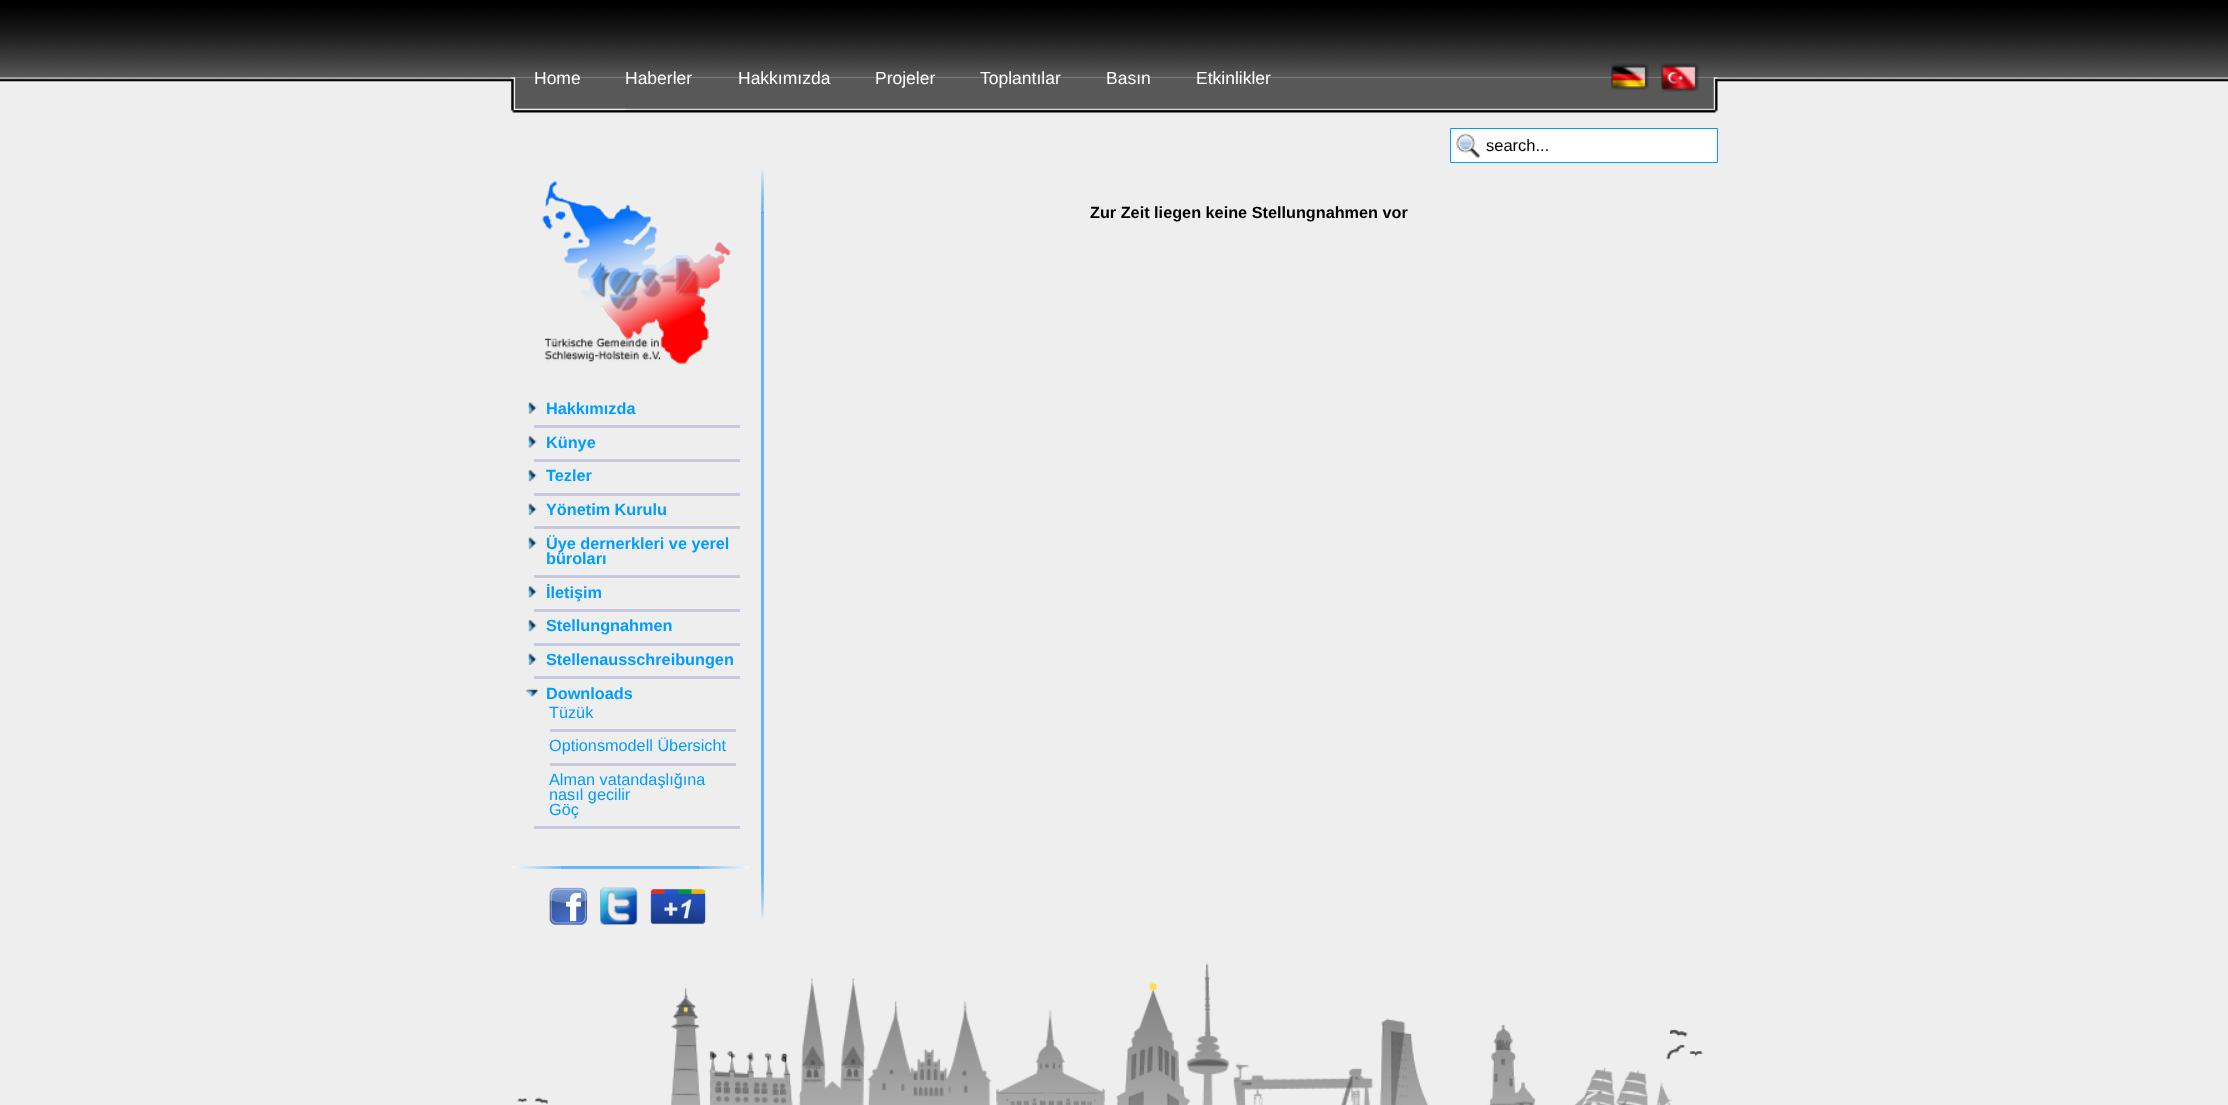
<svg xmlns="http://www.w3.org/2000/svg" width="2228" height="1105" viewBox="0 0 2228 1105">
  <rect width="100%" height="100%" fill="#eee"/>
  <image x="0" y="0" width="2228" height="82" href="img/1.png"/>
  <image x="511" y="77" width="1207" height="36" href="img/2.png"/>
  <image x="1611" y="63" width="38" height="27" href="img/3.png"/>
  <image x="1661" y="63" width="38" height="29" href="img/4.png"/>
  <path d="M1451 129h266v33H1451z" fill="#fff"/>
  <image x="1456" y="133" width="25" height="26" href="img/5.png"/>
  <path d="M1450.5 128.5h267v34H1450.5z" fill="none" stroke="#009cff"/>
  <image x="761" y="169" width="3" height="44" href="img/6.png"/>
  <path d="M761 212h3v663H761z" fill="#008fff91"/>
  <image x="761" y="875" width="3" height="44" href="img/7.png"/>
  <image x="542" y="181" width="188" height="183" href="img/8.png"/>
  <image x="528" y="402" width="9" height="12" href="img/9.png"/>
  <path d="M534 425h206v3H534z" fill="#c7c8de"/>
  <image x="528" y="436" width="9" height="12" href="img/10.png"/>
  <path d="M534 459h206v3H534z" fill="#c7c8de"/>
  <image x="528" y="470" width="9" height="12" href="img/11.png"/>
  <path d="M534 493h206v3H534z" fill="#c7c8de"/>
  <image x="528" y="503" width="9" height="12" href="img/12.png"/>
  <path d="M534 526h206v3H534z" fill="#c7c8de"/>
  <image x="528" y="537" width="9" height="12" href="img/9.png"/>
  <path d="M534 575h206v3H534z" fill="#c7c8de"/>
  <image x="528" y="586" width="9" height="12" href="img/13.png"/>
  <path d="M534 609h206v3H534z" fill="#c7c8de"/>
  <image x="528" y="620" width="9" height="12" href="img/11.png"/>
  <path d="M534 643h206v3H534z" fill="#c7c8de"/>
  <image x="528" y="653" width="9" height="12" href="img/12.png"/>
  <path d="M534 676h206v3H534z" fill="#c7c8de"/>
  <image x="526" y="688" width="12" height="9" href="img/14.png"/>
  <path d="M550 729h186v3H550z" fill="#c7c8de"/>
  <path d="M550 763h186v3H550z" fill="#c7c8de"/>
  <path d="M534 826h206v3H534z" fill="#c7c8de"/>
  <image x="511" y="866" width="51" height="3" href="img/15.png"/>
  <path d="M561 866h138v3H561z" fill="#008fff91"/>
  <image x="698" y="866" width="51" height="3" href="img/16.png"/>
  <image x="549" y="887" width="39" height="38" href="img/17.png"/>
  <image x="600" y="887" width="38" height="38" href="img/18.png"/>
  <image x="650" y="888" width="56" height="37" href="img/19.png"/>
  <image x="517" y="963" width="1186" height="142" href="img/20.png"/>
  <g font-family="Liberation Sans" font-size="17.5" fill="#fff">
    <text x="534" y="84">Home</text>
    <text x="625" y="84">Haberler</text>
    <text x="738" y="84">Hakkımızda</text>
    <text x="875" y="84">Projeler</text>
    <text x="980" y="84">Toplantılar</text>
    <text x="1106" y="84">Basın</text>
    <text x="1196" y="84">Etkinlikler</text>
  </g>
  <text x="1486" y="151" font-family="Liberation Sans" font-size="16.5" fill="#000">search...</text>
  <text x="1090" y="218" font-family="Liberation Sans" font-size="16.25" font-weight="bold" fill="#000">Zur Zeit liegen keine Stellungnahmen vor</text>
  <g font-family="Liberation Sans" font-size="16.25" font-weight="bold" fill="#009cff">
    <text x="546" y="414">Hakkımızda</text>
    <text x="546" y="448">Künye</text>
    <text x="546" y="481">Tezler</text>
    <text x="546" y="515">Yönetim Kurulu</text>
    <text x="546" y="549">Üye dernerkleri ve yerel</text>
    <text x="546" y="564">büroları</text>
    <text x="546" y="598">İletişim</text>
    <text x="546" y="631">Stellungnahmen</text>
    <text x="546" y="665">Stellenausschreibungen</text>
    <text x="546" y="699">Downloads</text>
  </g>
  <g font-family="Liberation Sans" font-size="16.25" fill="#009cff">
    <text x="549" y="718">Tüzük</text>
    <text x="549" y="751">Optionsmodell Übersicht</text>
    <text x="549" y="785">Alman vatandaşlığına</text>
    <text x="549" y="800">nasıl gecilir</text>
    <text x="549" y="815">Göç</text>
  </g>
</svg>
